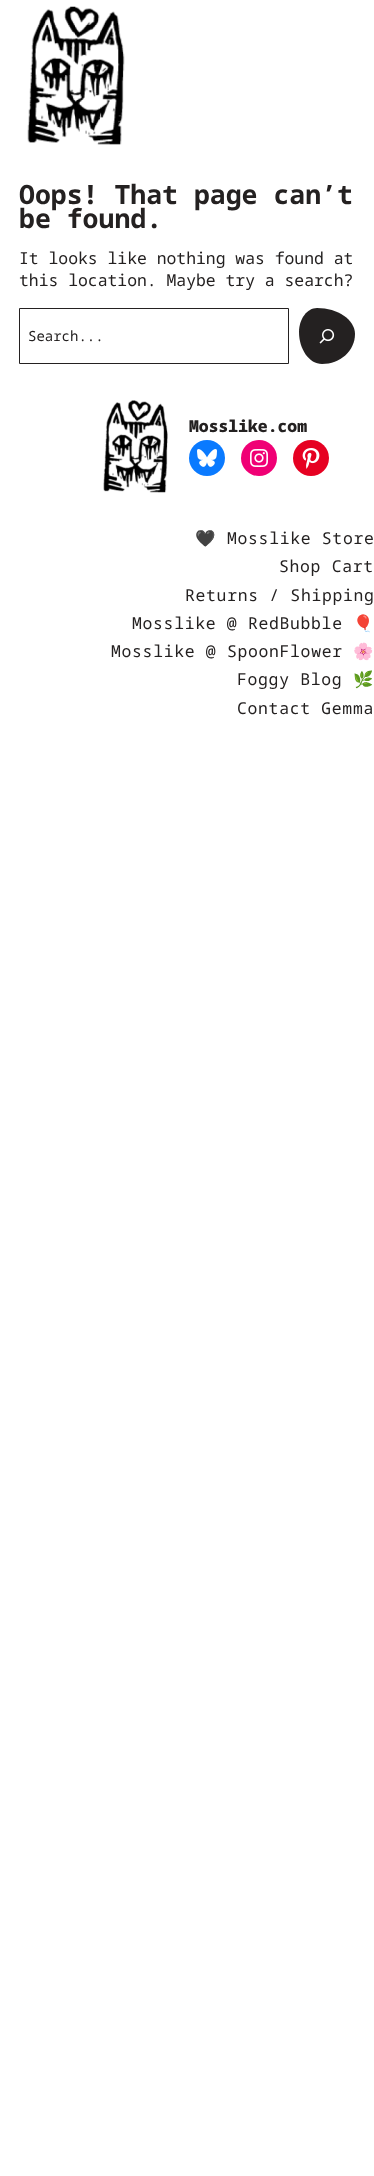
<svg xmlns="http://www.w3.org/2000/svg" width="374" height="2176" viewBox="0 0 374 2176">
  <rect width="100%" height="100%" fill="#fff"/>
  <image x="27" y="6" width="98" height="139" href="img/1.png"/>
  <path d="M19.5 308.5h269v55H19.5z" fill="none" stroke="#242121"/>
  <path d="M317 308C338 308 355 320 355 334C355 351 340 364 322 364C309 364 299 349 299 332C299 319 307 308 317 308Z" fill="#242121"/>
  <image x="319" y="329" width="16" height="15" href="img/2.png"/>
  <image x="103" y="400" width="65" height="93" href="img/3.png"/>
  <circle cx="207" cy="458" r="18" fill="#0a7aff"/>
  <image x="197" y="449" width="20" height="18" href="img/4.png"/>
  <circle cx="259" cy="458" r="18" fill="#f00075"/>
  <image x="250" y="449" width="18" height="18" href="img/5.png"/>
  <circle cx="311" cy="458" r="18" fill="#e60122"/>
  <image x="302" y="448" width="18" height="21" href="img/6.png"/>
  <g font-family="Noto Sans Mono" font-size="26.5" font-weight="bold" fill="#242121">
    <text x="19" y="204">Oops! That page can’t</text>
    <text x="19" y="228">be found.</text>
  </g>
  <g font-family="Noto Sans Mono" font-size="16.4" fill="#242121">
    <text x="19" y="264">It looks like nothing was found at</text>
    <text x="19" y="286">this location. Maybe try a search?</text>
  </g>
  <text x="28" y="341" font-family="Noto Sans Mono" font-size="14" fill="#242121">Search...</text>
  <text x="189" y="432" font-family="Noto Sans Mono" font-size="16.4" font-weight="900" fill="#242121">Mosslike.com</text>
  <text x="195" y="544" font-family="Noto Color Emoji" font-size="16.4" letter-spacing="0.7" fill="#242121">🖤</text>
  <g font-family="Noto Sans Mono" font-size="16.4" letter-spacing="0.7" fill="#242121">
    <text x="227" y="544">Mosslike Store</text>
    <text x="279" y="572">Shop Cart</text>
    <text x="185" y="601">Returns / Shipping</text>
    <text x="132" y="629">Mosslike @ RedBubble</text>
  </g>
  <text x="353" y="629" font-family="Noto Color Emoji" font-size="16.4" letter-spacing="0.7" fill="#242121">🎈</text>
  <text x="111" y="657" font-family="Noto Sans Mono" font-size="16.4" letter-spacing="0.7" fill="#242121">Mosslike @ SpoonFlower</text>
  <text x="353" y="657" font-family="Noto Color Emoji" font-size="16.4" letter-spacing="0.7" fill="#242121">🌸</text>
  <text x="237" y="685" font-family="Noto Sans Mono" font-size="16.4" letter-spacing="0.7" fill="#242121">Foggy Blog</text>
  <text x="353" y="685" font-family="Noto Color Emoji" font-size="16.4" letter-spacing="0.7" fill="#242121">🌿</text>
  <text x="237" y="714" font-family="Noto Sans Mono" font-size="16.4" letter-spacing="0.7" fill="#242121">Contact Gemma</text>
</svg>
